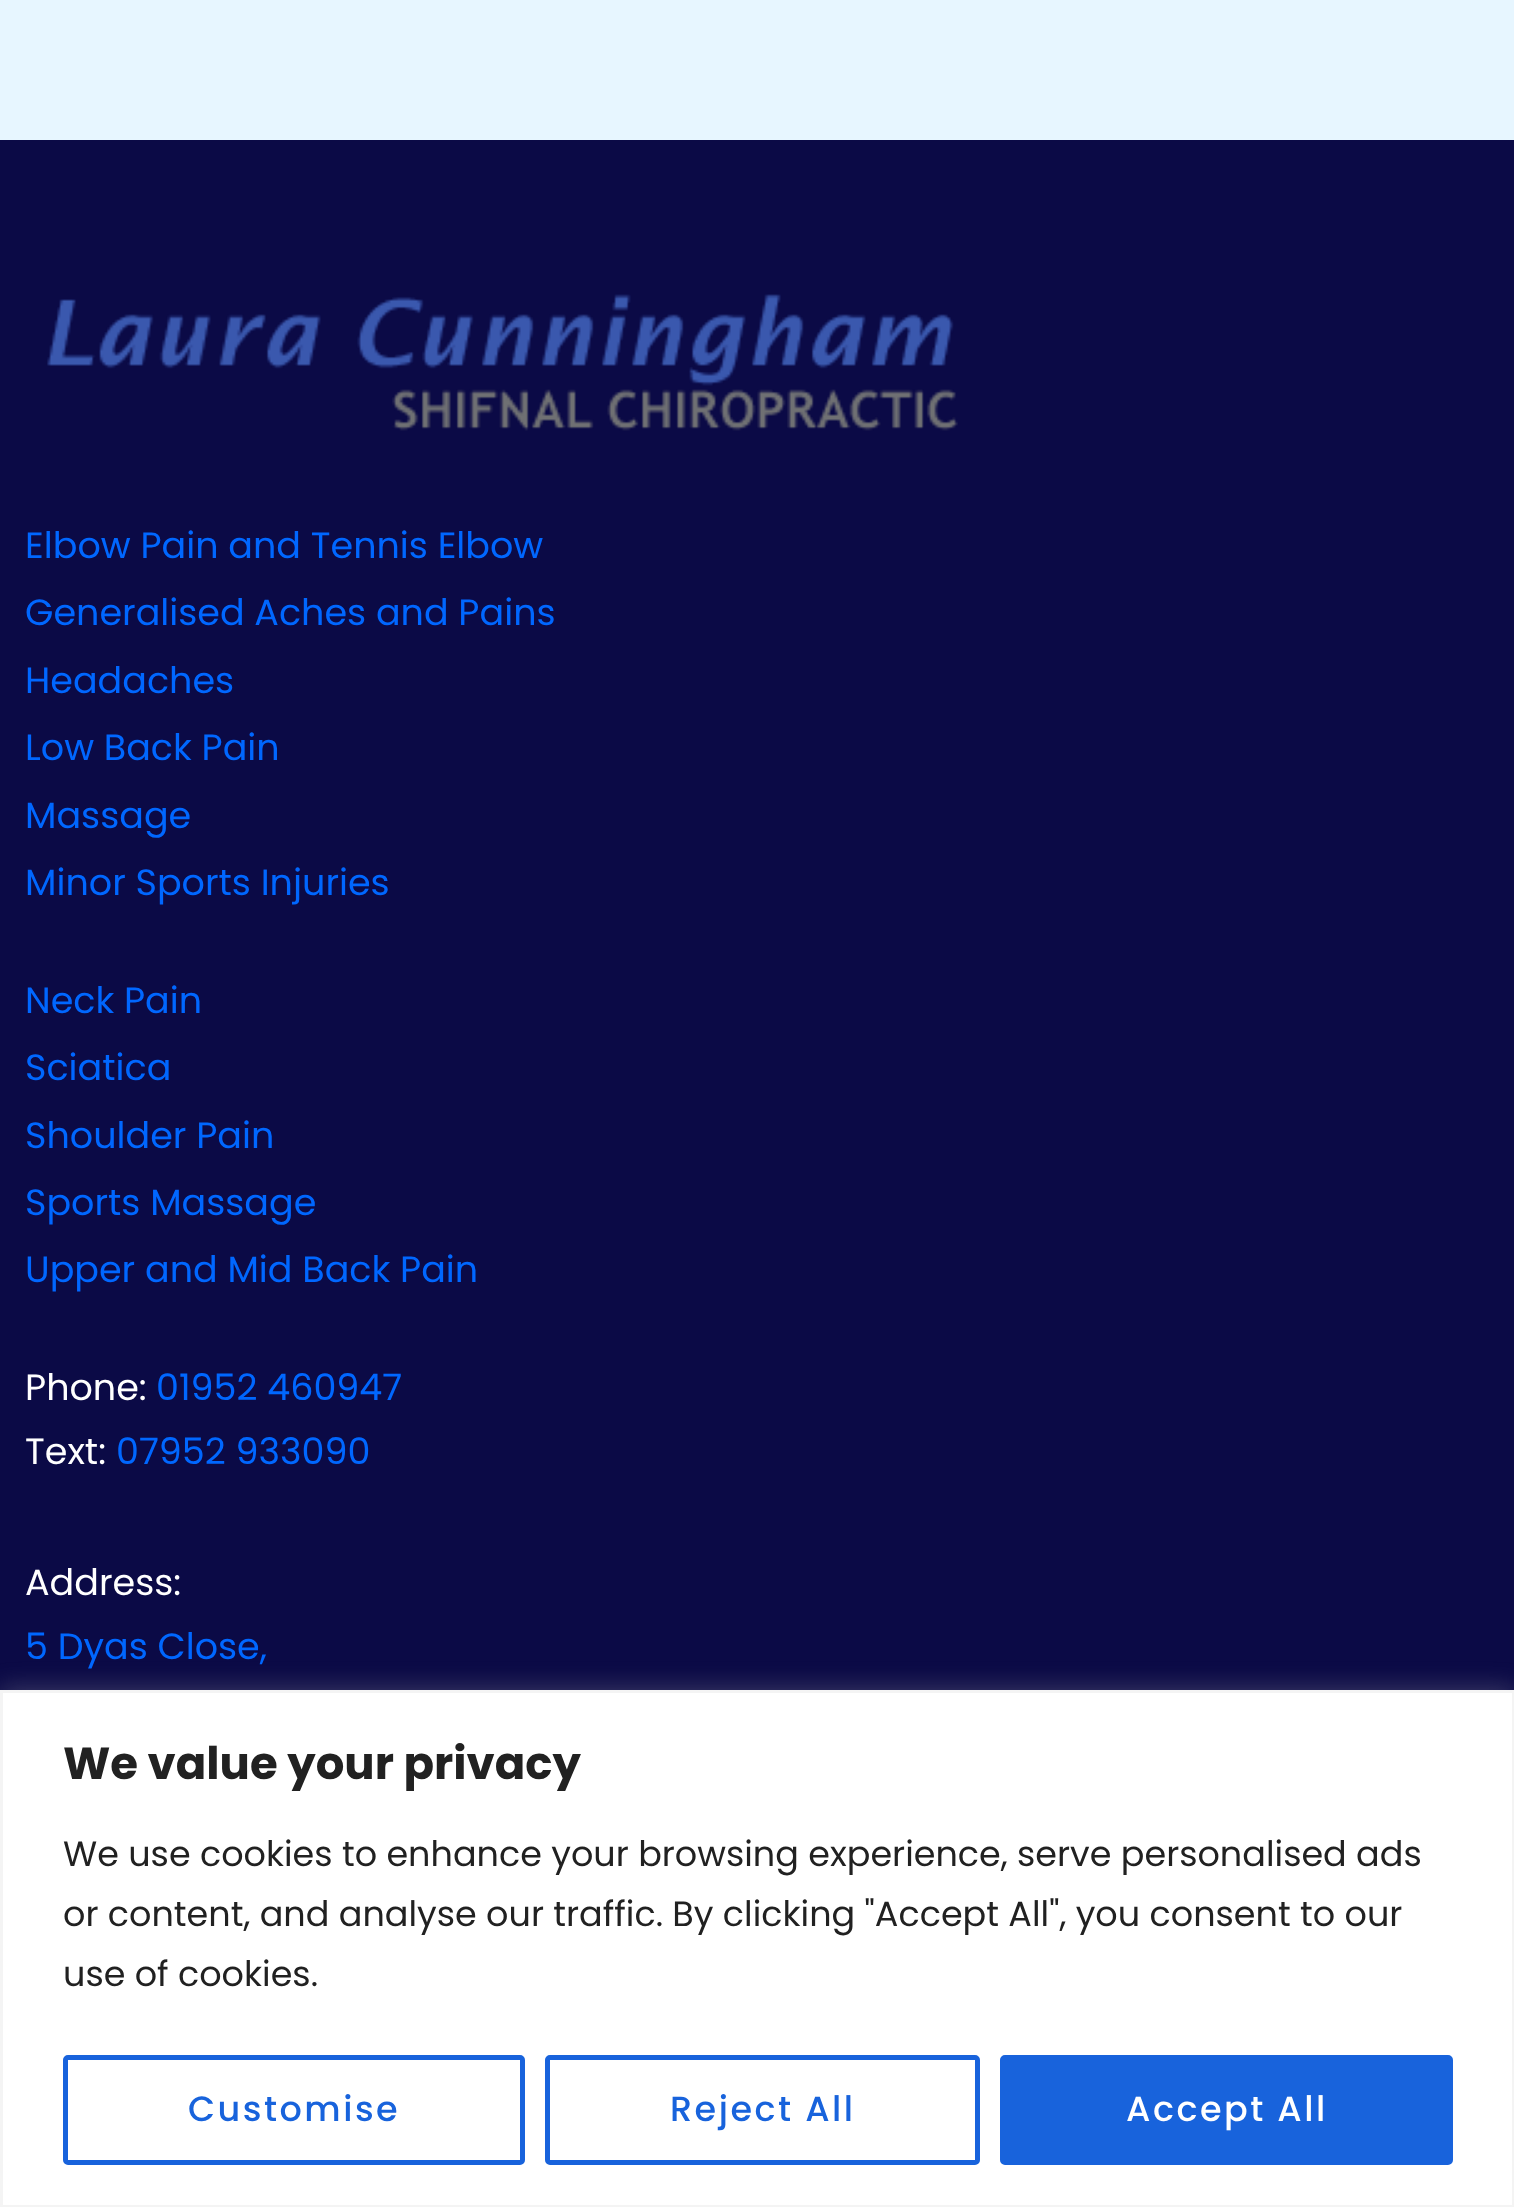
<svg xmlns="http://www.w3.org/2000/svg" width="1514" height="2207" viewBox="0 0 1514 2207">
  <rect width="100%" height="100%" fill="#e7f6ff"/>
  <path d="M0 140h1514v1550H0z" fill="#0b0a46"/>
  <image x="47" y="294" width="911" height="137" href="img/1.png"/>
  <path d="M0 1688h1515v517H0z" fill="#acabab4d" filter="blur(12.5px)"/>
  <path d="M1.5 1691.5h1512v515H1.5z" fill="#fff" stroke="#f4f4f4" stroke-width="3"/>
  <rect x="65.5" y="2057.5" width="457" height="105" rx="2.5" fill="none" stroke="#1863dc" stroke-width="5"/>
  <rect x="547.5" y="2057.5" width="430" height="105" rx="2.5" fill="none" stroke="#1863dc" stroke-width="5"/>
  <rect x="1002.5" y="2057.5" width="448" height="105" rx="2.5" fill="#1863dc" stroke="#1863dc" stroke-width="5"/>
  <g font-family="Poppins" font-size="36.5" fill="#0067ff">
    <text x="25" y="558">Elbow Pain and Tennis Elbow</text>
    <text x="25" y="625">Generalised Aches and Pains</text>
    <text x="25" y="693">Headaches</text>
    <text x="25" y="760">Low Back Pain</text>
    <text x="25" y="828">Massage</text>
    <text x="25" y="895">Minor Sports Injuries</text>
    <text x="25" y="1013">Neck Pain</text>
    <text x="25" y="1080">Sciatica</text>
    <text x="25" y="1148">Shoulder Pain</text>
    <text x="25" y="1215">Sports Massage</text>
    <text x="25" y="1282">Upper and Mid Back Pain</text>
  </g>
  <text x="25" y="1400" font-family="Poppins" font-size="36.5" fill="#fff">Phone:</text>
  <text x="156" y="1400" font-family="Poppins" font-size="36.5" fill="#0067ff">01952 460947</text>
  <text x="25" y="1464" font-family="Poppins" font-size="36.5" fill="#fff">Text:</text>
  <text x="116" y="1464" font-family="Poppins" font-size="36.5" fill="#0067ff">07952 933090</text>
  <text x="25" y="1595" font-family="Poppins" font-size="36.5" fill="#fff">Address:</text>
  <text x="25" y="1659" font-family="Poppins" font-size="36.5" fill="#0067ff">5 Dyas Close,</text>
  <text x="63" y="1779" font-family="Poppins" font-size="45" font-weight="bold" fill="#212121">We value your privacy</text>
  <g font-family="Poppins" font-size="35" fill="#212121">
    <text x="63" y="1866">We use cookies to enhance your browsing experience, serve personalised ads</text>
    <text x="63" y="1926">or content, and analyse our traffic. By clicking "Accept All", you consent to our</text>
    <text x="63" y="1986">use of cookies.</text>
  </g>
  <g font-family="Poppins" font-size="35" font-weight="500" letter-spacing="2.5" fill="#1863dc">
    <text x="188" y="2121">Customise</text>
    <text x="670" y="2121">Reject All</text>
  </g>
  <text x="1126" y="2121" font-family="Poppins" font-size="35" font-weight="500" letter-spacing="2.5" fill="#fff">Accept All</text>
</svg>
